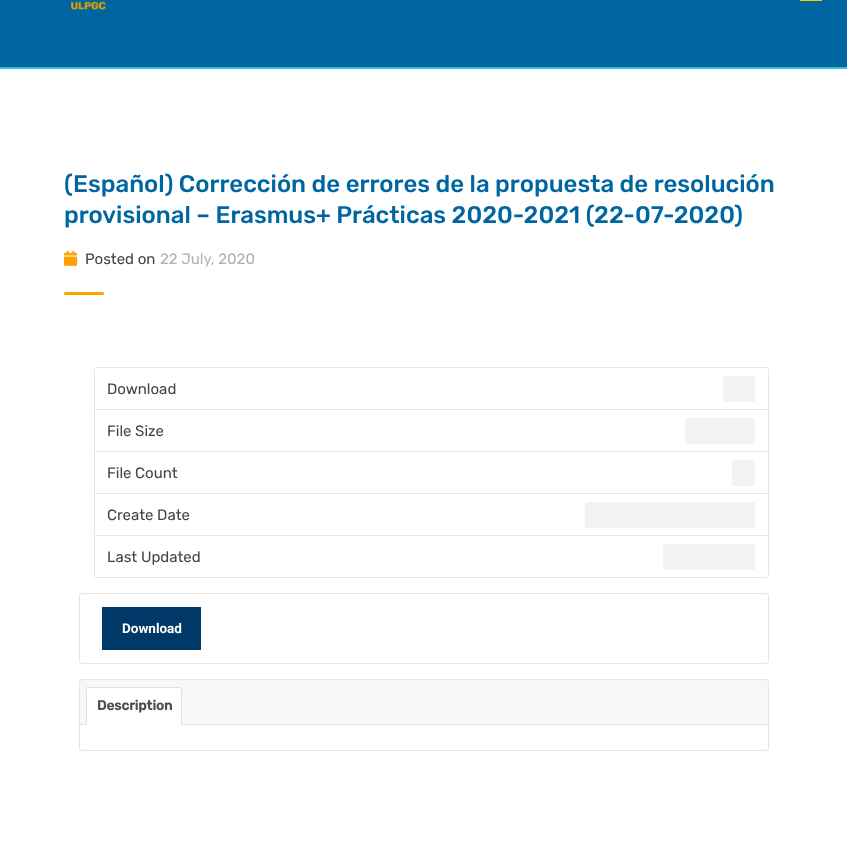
<svg xmlns="http://www.w3.org/2000/svg" width="847" height="841" viewBox="0 0 847 841">
  <rect width="100%" height="100%" fill="#fff"/>
  <path d="M0 0h847v67H0z" fill="#0066a1"/>
  <path d="M0 67h847v2H0z" fill="#26c6da"/>
  <path d="M800 0h22v1H800z" fill="#fdc800"/>
  <image x="32" y="1" width="231" height="40" href="img/1.png"/>
  <image x="64" y="250" width="14" height="16" href="img/2.png"/>
  <rect x="64" y="292" width="40" height="3" rx="1.5" fill="#ffa100"/>
  <path d="M96.5 367.5H766.5C767.5 367.5 768.5 368.5 768.5 369.5V409.5H94.5V369.5C94.5 368.5 95.5 367.5 96.5 367.5Z" fill="none" stroke="#e5e5e5"/>
  <rect x="723" y="376" width="32" height="26" rx="3" fill="#f2f2f2"/>
  <path d="M94.5 409.5h674v42H94.5z" fill="none" stroke="#e5e5e5"/>
  <rect x="685" y="418" width="70" height="26" rx="3" fill="#f2f2f2"/>
  <path d="M94.5 451.5h674v42H94.5z" fill="none" stroke="#e5e5e5"/>
  <rect x="732" y="460" width="23" height="26" rx="3" fill="#f2f2f2"/>
  <path d="M94.5 493.5h674v42H94.5z" fill="none" stroke="#e5e5e5"/>
  <rect x="585" y="502" width="170" height="26" rx="3" fill="#f2f2f2"/>
  <path d="M94.5 535.5H768.5V575.5C768.5 576.5 767.5 577.5 766.5 577.5H96.5C95.5 577.5 94.5 576.5 94.5 575.5Z" fill="#fff" stroke="#e5e5e5"/>
  <rect x="663" y="544" width="92" height="26" rx="3" fill="#f2f2f2"/>
  <rect x="79.5" y="593.5" width="689" height="70" rx="2.5" fill="none" stroke="#e5e5e5"/>
  <path d="M102 607h99v43H102z" fill="#003867"/>
  <rect x="79.5" y="679.5" width="689" height="71" rx="2.5" fill="none" stroke="#e5e5e5"/>
  <path d="M80 680h688v44H80z" fill="#00000008"/>
  <path d="M80 724h688v1H80z" fill="#e5e5e5"/>
  <path d="M88.5 687H179.5C181 687 182 688 182 689.5V725H86V689.5C86 688 87 687 88.5 687Z" fill="#fff"/>
  <path d="M88 687L87 688L88 689V688H180V689L181 688L180 687Z" fill="#dee2e6"/>
  <path d="M182 725V690C182 689 181.5 688 181.5 687.5L180.5 688.5L181 690V724Z" fill="#dee2e6"/>
  <path d="M182 725L181 724H87L86 725Z" fill="#fff"/>
  <path d="M86 725L87 724V690L87.5 688.5L86.5 687.5C86.5 688 86 689 86 690Z" fill="#dee2e6"/>
  <g font-family="Rubik" font-size="24" font-weight="500" fill="#0066a1">
    <text x="64" y="192">(Español) Corrección de errores de la propuesta de resolución</text>
    <text x="64" y="223">provisional – Erasmus+ Prácticas 2020-2021 (22-07-2020)</text>
  </g>
  <text x="85" y="264" font-family="Rubik" font-size="15" fill="#444">Posted on</text>
  <text x="160" y="264" font-family="Rubik" font-size="15" fill="#b1b1b1">22 July, 2020</text>
  <g font-family="Rubik" font-size="15" fill="#444">
    <text x="107" y="394">Download</text>
    <text x="107" y="436">File Size</text>
    <text x="107" y="478">File Count</text>
    <text x="107" y="520">Create Date</text>
    <text x="107" y="562">Last Updated</text>
  </g>
  <text x="122" y="633" font-family="Roboto" font-size="13.5" font-weight="bold" fill="#fff">Download</text>
  <text x="97" y="710" font-family="Rubik" font-size="13.5" font-weight="bold" fill="#495057">Description</text>
</svg>
